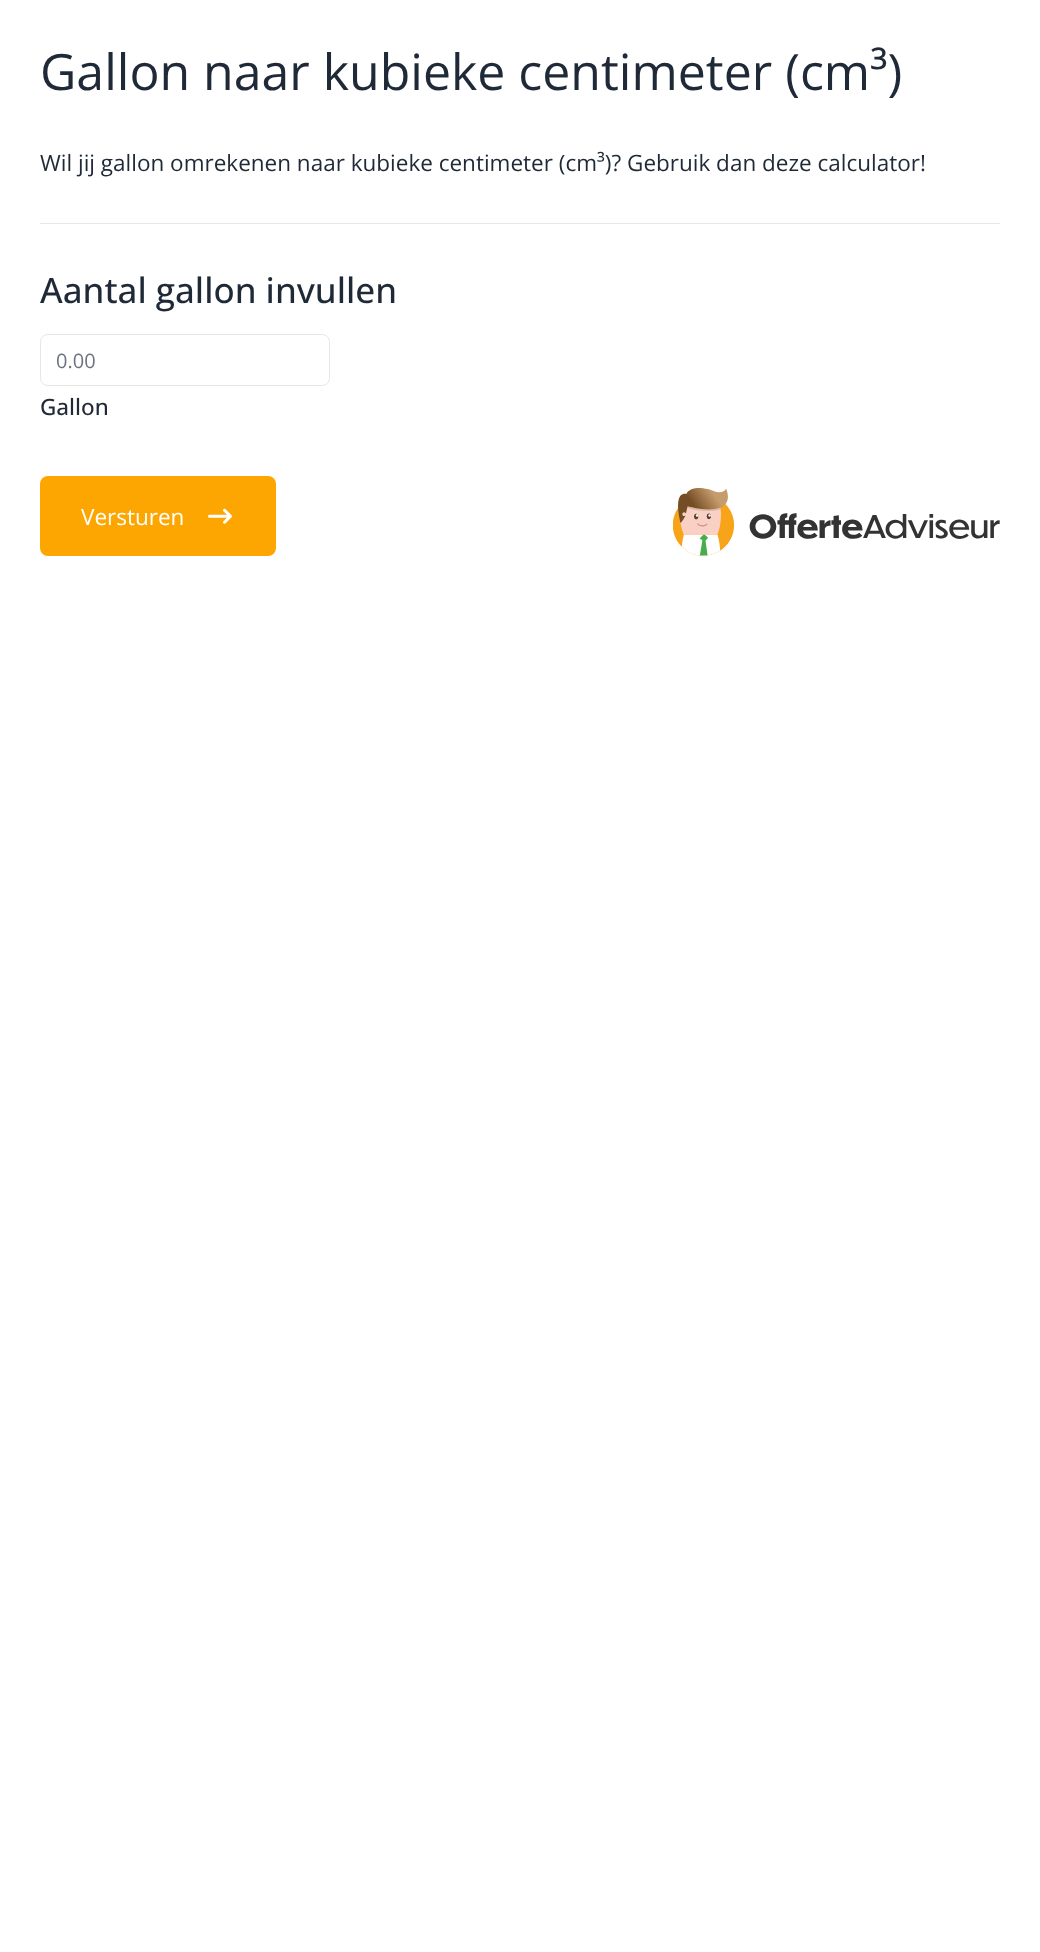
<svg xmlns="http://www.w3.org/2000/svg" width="1040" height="1952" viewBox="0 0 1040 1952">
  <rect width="100%" height="100%" fill="#fff"/>
  <path d="M40 223h960v1H40z" fill="#e5e7eb"/>
  <rect x="40.5" y="334.5" width="289" height="51" rx="7.5" fill="none" stroke="#e7e7e7"/>
  <rect x="40" y="476" width="236" height="80" rx="8" fill="#fda602"/>
  <image x="208" y="508" width="24" height="16" href="img/1.png"/>
  <image x="673" y="488" width="327" height="68" href="img/2.png"/>
  <text x="40" y="90" font-family="Open Sans" font-size="50" fill="#1f2937">Gallon naar kubieke centimeter (cm³)</text>
  <text x="40" y="171" font-family="Open Sans" font-size="22.5" fill="#1f2937">Wil jij gallon omrekenen naar kubieke centimeter (cm³)? Gebruik dan deze calculator!</text>
  <text x="40" y="303" font-family="Open Sans" font-size="35" font-weight="500" fill="#1f2937">Aantal gallon invullen</text>
  <text x="56" y="368" font-family="Open Sans" font-size="20" fill="#6b7280">0.00</text>
  <text x="40" y="415" font-family="Open Sans" font-size="22.5" font-weight="500" fill="#1f2937">Gallon</text>
  <text x="81" y="525" font-family="Open Sans" font-size="22.5" fill="#fff">Versturen</text>
</svg>
